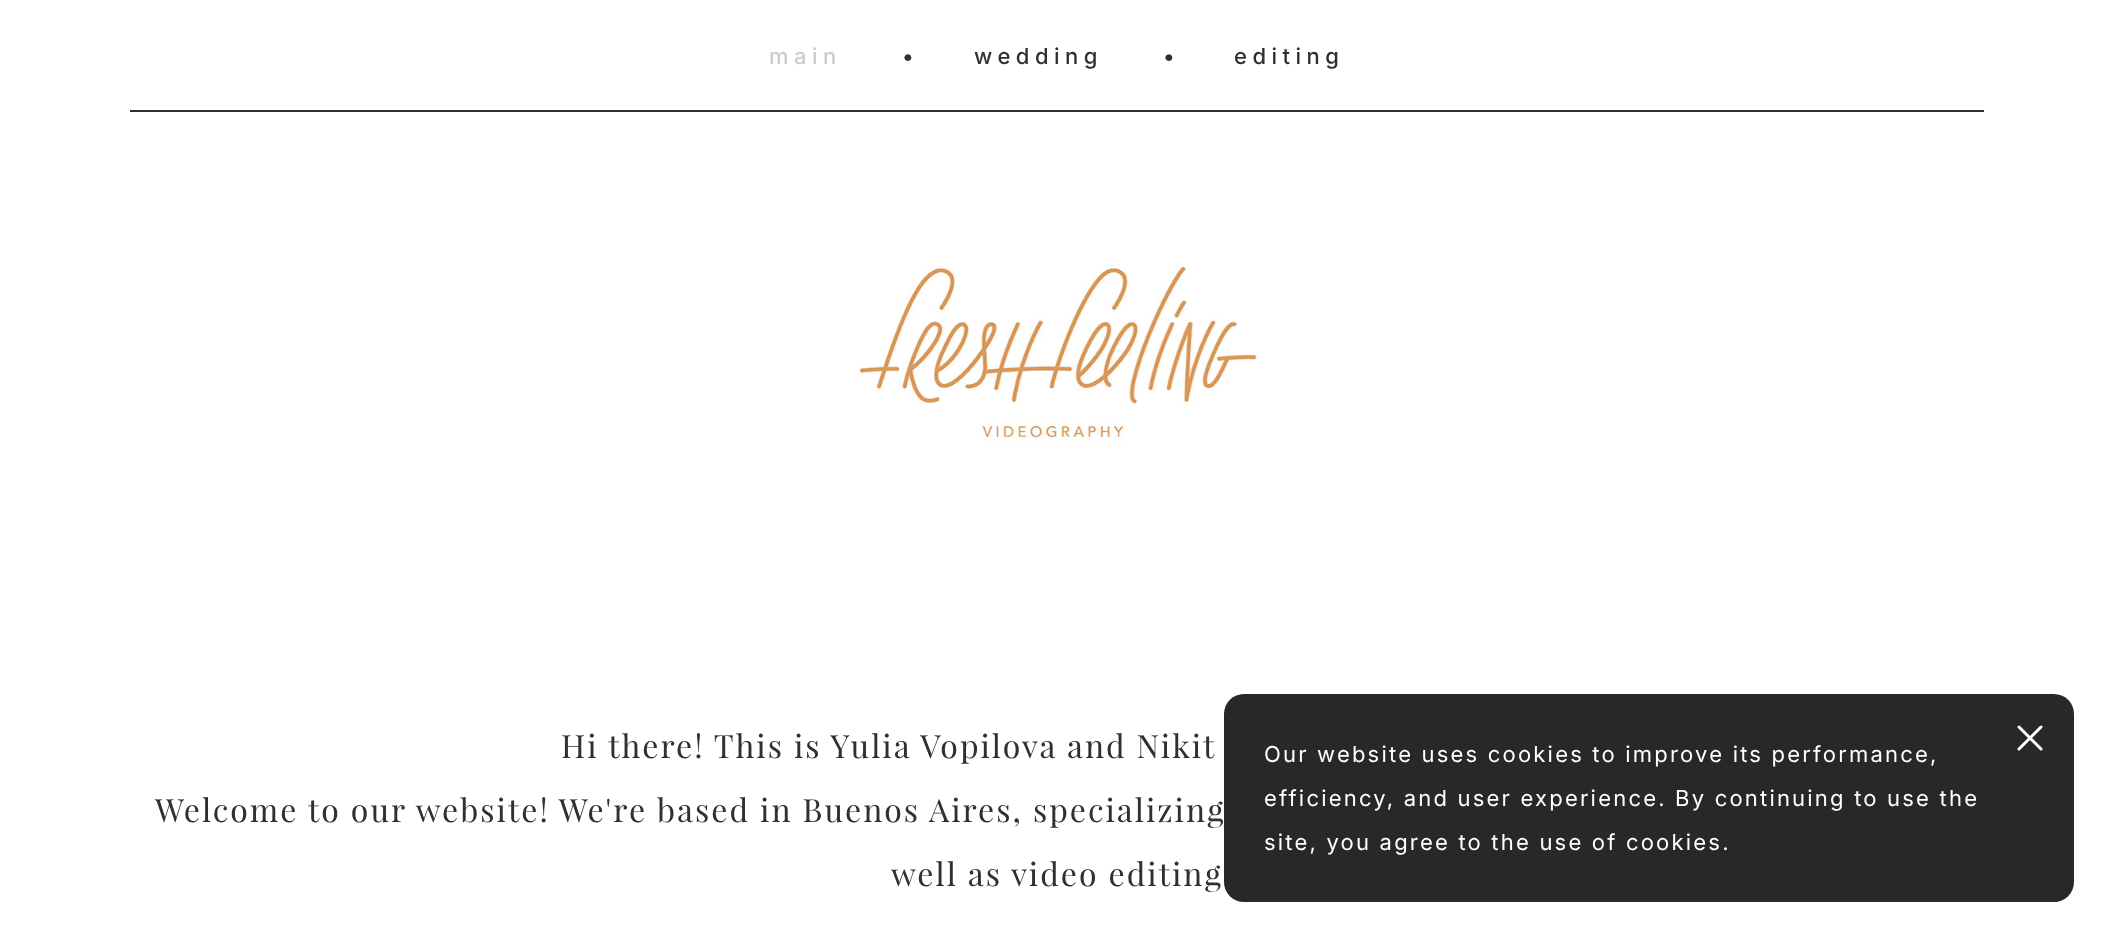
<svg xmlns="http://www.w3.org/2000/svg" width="2114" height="942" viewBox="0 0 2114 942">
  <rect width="100%" height="100%" fill="#fff"/>
  <path d="M130 110h1854v2H130z" fill="#303030"/>
  <image x="859" y="264" width="399" height="178" href="img/1.png"/>
  <rect x="1224" y="694" width="850" height="208" rx="20" fill="#111111e6"/>
  <path d="M2041 727L2019 749M2019 727L2041 749" fill="none" stroke="#fff" stroke-width="3" stroke-linecap="round" stroke-linejoin="round"/>
  <text x="769" y="64" font-family="Inter" font-size="22" font-weight="500" letter-spacing="5.5" fill="#ccc">main</text>
  <text x="902" y="64" font-family="Inter" font-size="22" font-weight="500" fill="#303030">•</text>
  <text x="974" y="64" font-family="Inter" font-size="22" font-weight="500" letter-spacing="5.5" fill="#303030">wedding</text>
  <text x="1163" y="64" font-family="Inter" font-size="22" font-weight="500" fill="#303030">•</text>
  <text x="1234" y="64" font-family="Inter" font-size="22" font-weight="500" letter-spacing="5.5" fill="#303030">editing</text>
  <g font-family="Playfair Display" font-size="32" letter-spacing="2" fill="#303030">
    <text x="561" y="758">Hi there! This is Yulia Vopilova and Nikit</text>
    <text x="155" y="822">Welcome to our website! We're based in Buenos Aires, specializing</text>
    <text x="891" y="886">well as video editing</text>
  </g>
  <g font-family="Inter" font-size="22" letter-spacing="2.2" fill="#fff">
    <text x="1264" y="762">Our website uses cookies to improve its performance,</text>
    <text x="1264" y="806">efficiency, and user experience. By continuing to use the</text>
    <text x="1264" y="850">site, you agree to the use of cookies.</text>
  </g>
</svg>
